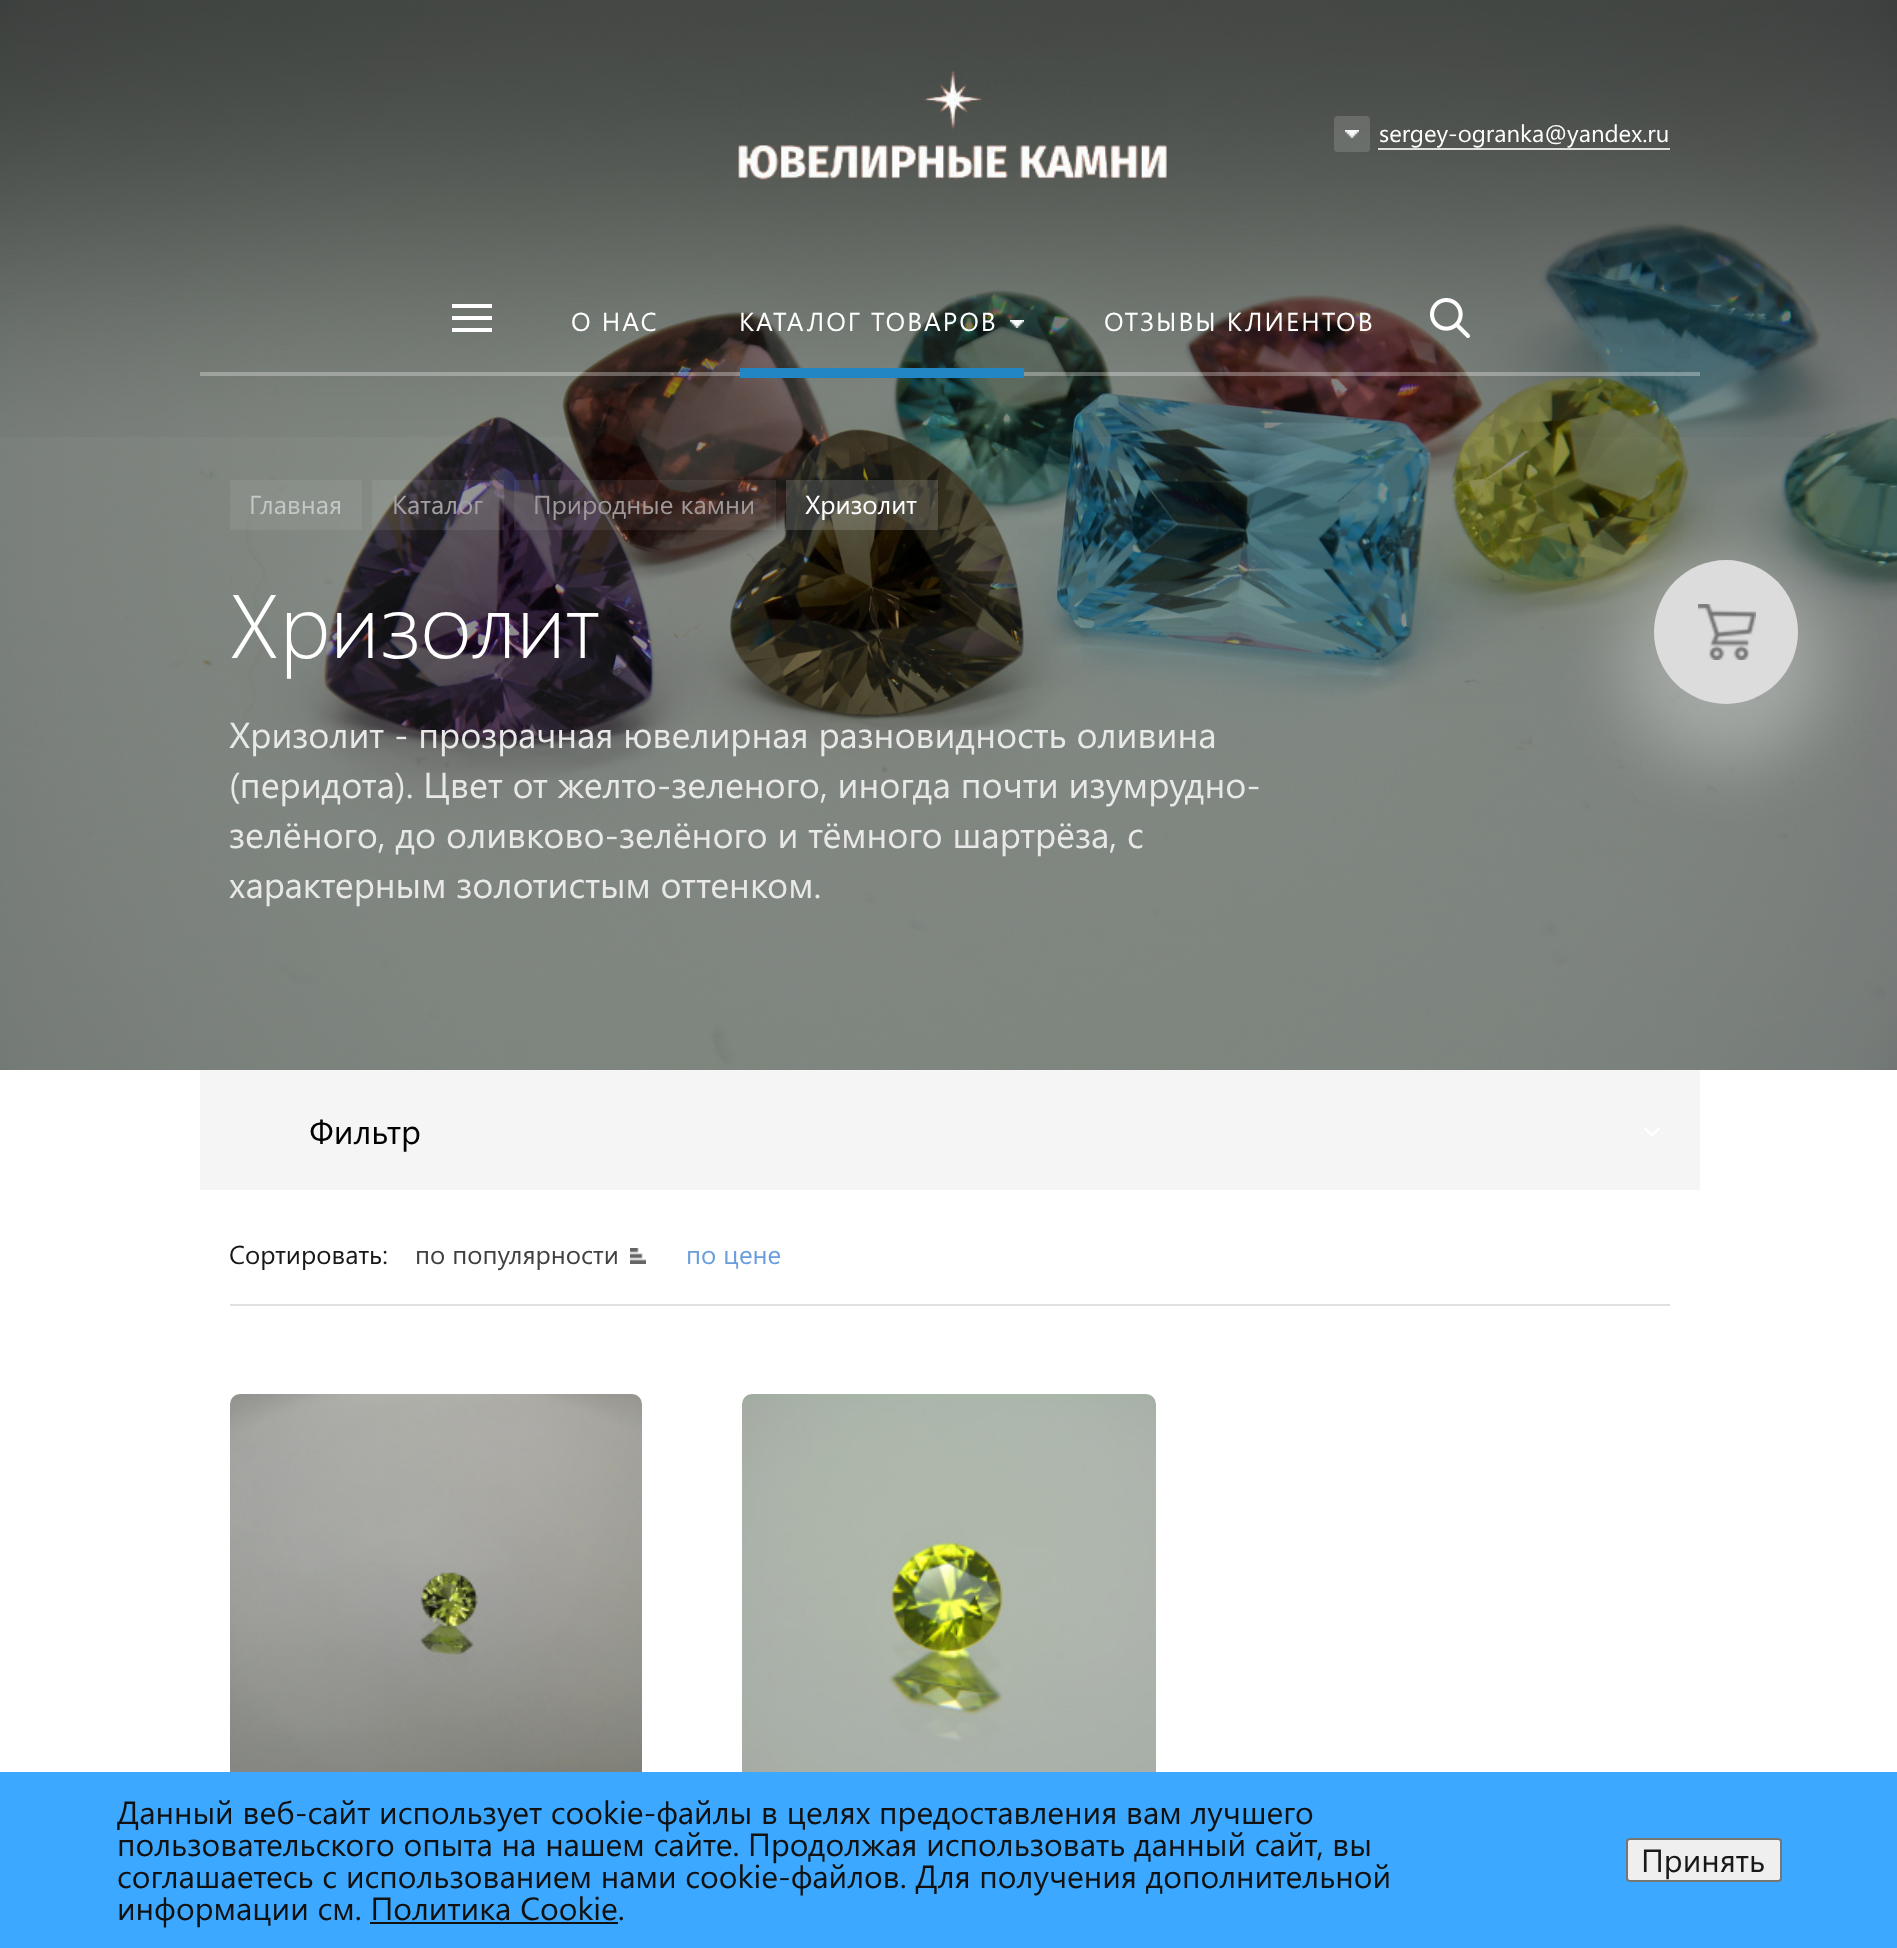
<svg xmlns="http://www.w3.org/2000/svg" width="1897" height="1948" viewBox="0 0 1897 1948">
  <rect width="100%" height="100%" fill="#fff"/>
  <image x="0" y="0" width="1897" height="1070" href="img/5.png"/>
  <image x="0" y="0" width="1897" height="437" href="img/6.png"/>
  <image x="737" y="70" width="431" height="110" href="img/1.png"/>
  <rect x="1334" y="116" width="36" height="36" rx="4" fill="#ffffff26"/>
  <image x="1345" y="130" width="14" height="8" href="img/2.png"/>
  <path d="M1378 148h292v2H1378z" fill="#dedede"/>
  <path d="M200 372h1500v4H200z" fill="#ffffff4d"/>
  <path d="M452 304h40v4H452z" fill="#fff"/>
  <path d="M452 316h40v4H452z" fill="#fff"/>
  <path d="M452 328h40v4H452z" fill="#fff"/>
  <image x="1010" y="320" width="14" height="8" href="img/3.png"/>
  <path d="M740 368h284v10H740z" fill="#2285c4"/>
  <image x="1430" y="298" width="40" height="40" href="img/4.png"/>
  <path d="M230 480h132v50H230z" fill="#ffffff12"/>
  <path d="M372 480h132v50H372z" fill="#ffffff12"/>
  <path d="M514 480h262v50H514z" fill="#ffffff12"/>
  <path d="M786 480h152v50H786z" fill="#ffffff26"/>
  <path d="M200 1070h1500v120H200z" fill="#f5f5f5"/>
  <image x="1644" y="1128" width="16" height="8" href="img/7.png"/>
  <path d="M230 1304h1440v2H230z" fill="#e1e1e1"/>
  <image x="630" y="1248" width="16" height="16" href="img/8.png"/>
  <image x="230" y="1394" width="412" height="378" href="img/9.png"/>
  <image x="742" y="1394" width="414" height="378" href="img/10.png"/>
  <rect x="1624" y="560" width="204" height="204" rx="102" fill="#ffffff4d" filter="blur(35px)"/>
  <circle cx="1726" cy="632" r="72" fill="#dcdcdc"/>
  <image x="1698" y="604" width="58" height="56" href="img/11.png"/>
  <path d="M0 1772h1897v176H0z" fill="#3da8ff"/>
  <path d="M370 1922h248v2H370z" fill="#111"/>
  <rect x="1627" y="1839" width="154" height="42" rx="3" fill="#efefef" stroke="#767676" stroke-width="2"/>
  <text x="1379" y="142" font-family="Segoe UI" font-size="24" fill="#fff">sergey-ogranka@yandex.ru</text>
  <g font-family="Segoe UI" font-size="26" letter-spacing="2" fill="#fff">
    <text x="571" y="331">О НАС</text>
    <text x="739" y="331">КАТАЛОГ ТОВАРОВ</text>
    <text x="1104" y="331">ОТЗЫВЫ КЛИЕНТОВ</text>
  </g>
  <text x="249" y="514" font-family="Segoe UI" font-size="26" fill="#c4c7c4">Главная</text>
  <text x="392" y="514" font-family="Segoe UI" font-size="26" fill="#a3a0a3">Каталог</text>
  <text x="533" y="514" font-family="Segoe UI" font-size="26" fill="#9f9798">Природные камни</text>
  <text x="805" y="514" font-family="Segoe UI" font-size="26" fill="#fff">Хризолит</text>
  <text x="229" y="658" font-family="Segoe UI" font-size="90" font-weight="300" fill="#fff">Хризолит</text>
  <g font-family="Segoe UI" font-size="36" fill="#e8e8e8">
    <text x="229" y="748">Хризолит - прозрачная ювелирная разновидность оливина</text>
    <text x="229" y="798">(перидота). Цвет от желто-зеленого, иногда почти изумрудно-</text>
    <text x="229" y="848">зелёного, до оливково-зелёного и тёмного шартрёза, с</text>
    <text x="229" y="898">характерным золотистым оттенком.</text>
  </g>
  <text x="309" y="1144" font-family="Segoe UI" font-size="34" fill="#000">Фильтр</text>
  <text x="229" y="1264" font-family="Segoe UI" font-size="26" fill="#181818">Сортировать:</text>
  <text x="415" y="1264" font-family="Segoe UI" font-size="26" fill="#404040">по популярности</text>
  <text x="686" y="1264" font-family="Segoe UI" font-size="26" fill="#6b9ddd">по цене</text>
  <g font-family="Segoe UI" font-size="32" fill="#111">
    <text x="117" y="1824">Данный веб-сайт использует cookie-файлы в целях предоставления вам лучшего</text>
    <text x="117" y="1856">пользовательского опыта на нашем сайте. Продолжая использовать данный сайт, вы</text>
    <text x="117" y="1888">соглашаетесь с использованием нами cookie-файлов. Для получения дополнительной</text>
    <text x="117" y="1920">информации см. Политика Cookie.</text>
  </g>
  <text x="1641" y="1872" font-family="Segoe UI" font-size="32" fill="#181818">Принять</text>
</svg>
